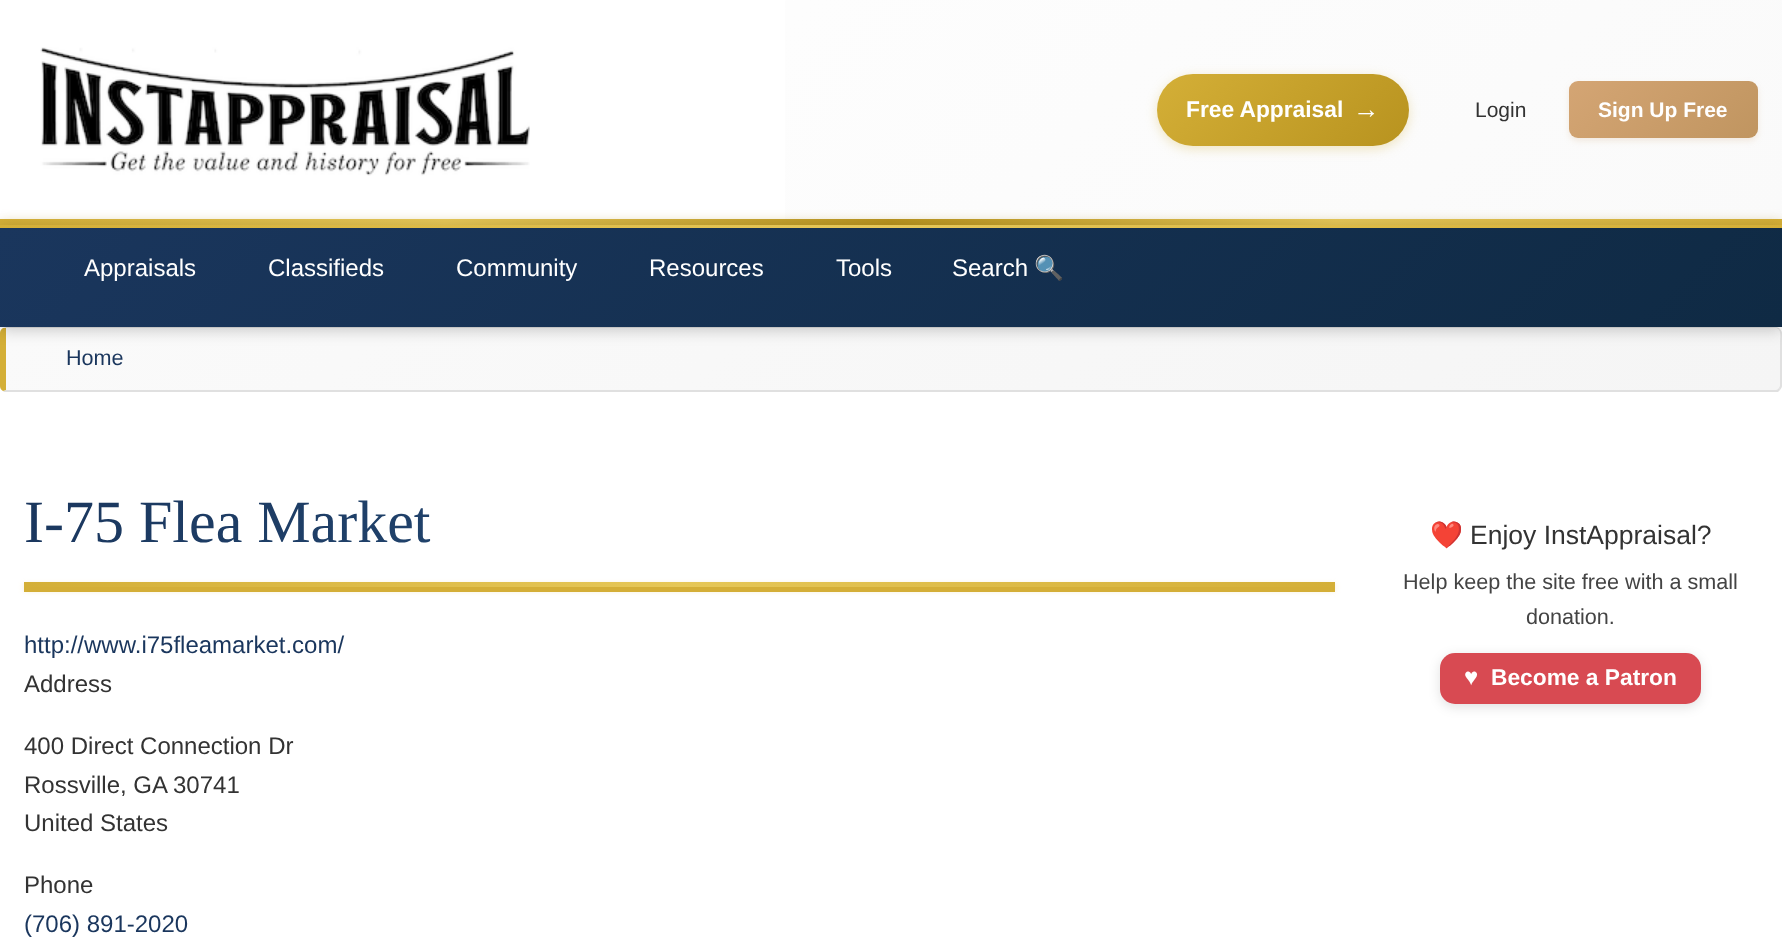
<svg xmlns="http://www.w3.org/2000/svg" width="1782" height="951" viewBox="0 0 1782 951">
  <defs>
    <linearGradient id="g1" gradientUnits="userSpaceOnUse" x1="325" y1="183" x2="1034" y2="892"><stop offset="0" stop-color="#1a365d"/><stop offset="1" stop-color="#2d5a87"/></linearGradient>
    <linearGradient id="g2" gradientUnits="userSpaceOnUse" x1="389" y1="-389" x2="1393" y2="614"><stop offset="0" stop-color="#fff"/><stop offset="1" stop-color="#fafafa"/></linearGradient>
    <linearGradient id="g3" gradientUnits="userSpaceOnUse" x1="1202" y1="29" x2="1364" y2="191"><stop offset="0" stop-color="#d4af37"/><stop offset="1" stop-color="#b8931f"/></linearGradient>
    <linearGradient id="g4" gradientUnits="userSpaceOnUse" x1="1602" y1="48" x2="1725" y2="171"><stop offset="0" stop-color="#d4a574"/><stop offset="1" stop-color="#c09560"/></linearGradient>
    <linearGradient id="g5" gradientUnits="userSpaceOnUse" x1="0" y1="222" x2="1782" y2="222"><stop offset="0" stop-color="#d4af37"/><stop offset="0.25" stop-color="#e6c757"/><stop offset="0.5" stop-color="#b8931f"/><stop offset="0.75" stop-color="#e6c757"/><stop offset="1" stop-color="#d4af37"/></linearGradient>
    <linearGradient id="g6" gradientUnits="userSpaceOnUse" x1="434" y1="-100" x2="1352" y2="818"><stop offset="0" stop-color="#fafafa"/><stop offset="1" stop-color="#f5f5f5"/></linearGradient>
    <linearGradient id="g7" gradientUnits="userSpaceOnUse" x1="420" y1="-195" x2="1362" y2="747"><stop offset="0" stop-color="#1a365d"/><stop offset="1" stop-color="#0f2a44"/></linearGradient>
    <linearGradient id="g8" gradientUnits="userSpaceOnUse" x1="0" y1="227" x2="1782" y2="226"><stop offset="0" stop-color="#d4af37"/><stop offset="0.5" stop-color="#e6c757"/><stop offset="1" stop-color="#d4af37"/></linearGradient>
    <linearGradient id="g9" gradientUnits="userSpaceOnUse" x1="24" y1="584" x2="1335" y2="584"><stop offset="0" stop-color="#d4af37"/><stop offset="0.5" stop-color="#e6c757"/><stop offset="1" stop-color="#d4af37"/></linearGradient>
  </defs>
  <rect width="100%" height="100%" fill="#fff"/>
  <path d="M785 0h997v219H785z" fill="url(#g2)"/>
  <image x="40" y="47" width="490" height="129" href="img/1.png"/>
  <rect x="1157" y="77" width="252" height="72" rx="36" fill="#d4af374d" filter="blur(6px)"/>
  <rect x="1157" y="74" width="252" height="72" rx="36" fill="url(#g3)"/>
  <rect x="1569" y="84" width="189" height="57" rx="9" fill="#d4a57433" filter="blur(3px)"/>
  <rect x="1569" y="81" width="189" height="57" rx="9" fill="url(#g4)"/>
  <path d="M0 222h1782v6H0z" fill="#d4af3766" filter="blur(6px)"/>
  <path d="M0 219h1782v6H0z" fill="url(#g5)"/>
  <path d="M6 328H1776C1778 328 1780 331 1780 333V386C1780 388 1778 390 1776 390H6Z" fill="url(#g6)"/>
  <path d="M6 327L3 328H6H1776C1777 328 1778 329 1779 330L1780 329C1779 328 1778 327 1776 327Z" fill="#e0e0e0"/>
  <path d="M1782 386V333C1782 332 1781 330 1780 329L1779 330C1781 333 1780 339 1780 342V386L1779 388L1780 390C1781 389 1782 387 1782 386Z" fill="#e0e0e0"/>
  <path d="M4 392L3 391L6 390H1776C1777 390 1778 389 1779 388L1780 390L1778 392Z" fill="#e0e0e0"/>
  <path d="M0 333V386C0 388 1 390 3 391L6 390V328H3C1 329 0 331 0 333Z" fill="#d4af37"/>
  <path d="M0 228h1782v102H0z" fill="#00000033" filter="blur(7.5px)"/>
  <path d="M0 228h1782v99H0z" fill="url(#g7)"/>
  <path d="M0 225h1782v3H0z" fill="url(#g8)"/>
  <path d="M24 587h1311v5H24z" fill="#d4af37"/>
  <path d="M24 585h1311v5H24z" fill="#d4af374d" filter="blur(3px)"/>
  <path d="M24 582h1311v5H24z" fill="url(#g9)"/>
  <rect x="1440" y="656" width="261" height="51" rx="15" fill="#0000001f" filter="blur(6px)"/>
  <rect x="1440" y="653" width="261" height="51" rx="15" fill="#d84a52"/>
  <text x="1186" y="117" font-family="Liberation Sans" font-size="22.75" font-weight="bold" fill="#fff">Free Appraisal</text>
  <text x="1353" y="118" font-family="Liberation Sans" font-size="26.5" font-weight="bold" fill="#fff">→</text>
  <text x="1475" y="117" font-family="Liberation Sans" font-size="21" fill="#333">Login</text>
  <text x="1598" y="117" font-family="Liberation Sans" font-size="21" font-weight="bold" fill="#fff">Sign Up Free</text>
  <g font-family="Liberation Sans" font-size="24" fill="#fff">
    <text x="84" y="276">Appraisals</text>
    <text x="268" y="276">Classifieds</text>
    <text x="456" y="276">Community</text>
    <text x="649" y="276">Resources</text>
    <text x="836" y="276">Tools</text>
    <text x="952" y="276">Search</text>
  </g>
  <text x="1034" y="276" font-family="Noto Color Emoji" font-size="24" fill="#fff">🔍</text>
  <text x="66" y="365" font-family="Liberation Sans" font-size="21.6" fill="#1a365d">Home</text>
  <text x="24" y="542" font-family="Liberation Serif" font-size="60" fill="url(#g1)">I-75 Flea Market</text>
  <text x="24" y="653" font-family="Liberation Sans" font-size="24" fill="#1a365d">http://www.i75fleamarket.com/</text>
  <g font-family="Liberation Sans" font-size="24" fill="#333">
    <text x="24" y="692">Address</text>
    <text x="24" y="754">400 Direct Connection Dr</text>
    <text x="24" y="793">Rossville, GA</text>
    <text x="173" y="793">30741</text>
    <text x="24" y="831">United States</text>
    <text x="24" y="893">Phone</text>
  </g>
  <text x="24" y="932" font-family="Liberation Sans" font-size="24" fill="#1a365d">(706) 891-2020</text>
  <text x="1430" y="544" font-family="Noto Color Emoji" font-size="26.5" fill="#333">❤️</text>
  <text x="1470" y="544" font-family="Liberation Sans" font-size="26.5" fill="#333">Enjoy InstAppraisal?</text>
  <g font-family="Liberation Sans" font-size="21.6" fill="#444">
    <text x="1403" y="589">Help keep the site free with a small</text>
    <text x="1526" y="624">donation.</text>
  </g>
  <text x="1464" y="685" font-family="Liberation Sans" font-size="24" font-weight="bold" fill="#fff">♥</text>
  <text x="1491" y="685" font-family="Liberation Sans" font-size="22.75" font-weight="bold" fill="#fff">Become a Patron</text>
</svg>
